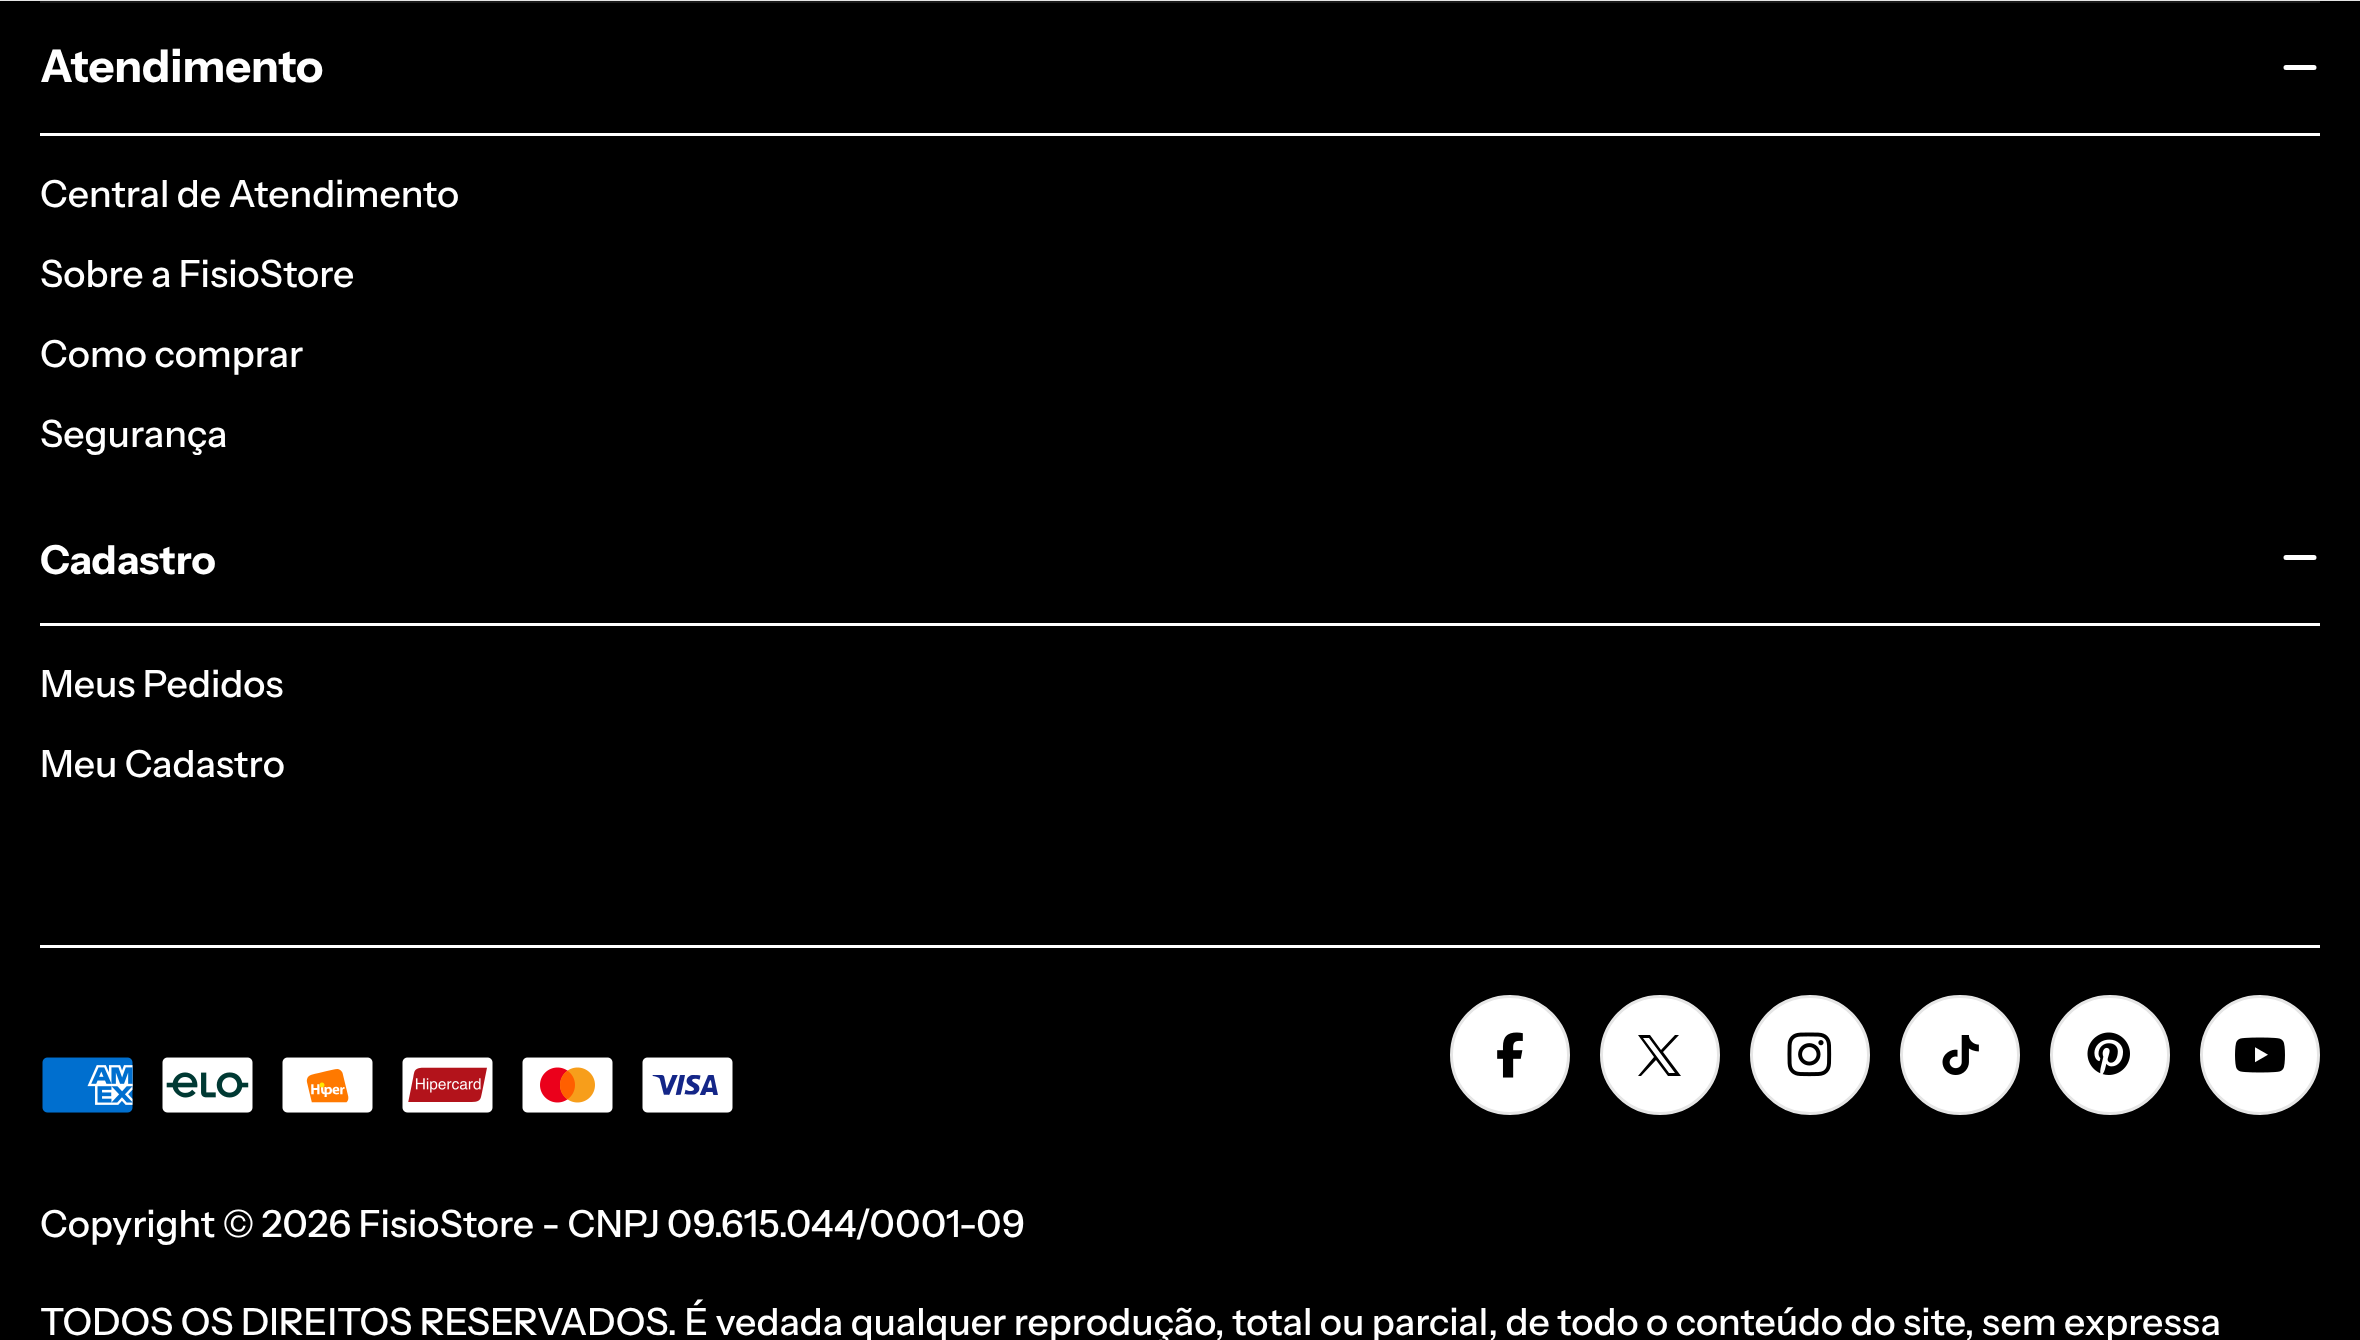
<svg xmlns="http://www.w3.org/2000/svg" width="2360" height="1340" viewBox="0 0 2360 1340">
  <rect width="100%" height="100%" fill="#000"/>
  <path d="M0 0h2360v1H0z" fill="#e5e5e5"/>
  <path d="M40 1h2280v2H40z" fill="#1a1a1a"/>
  <path d="M40 133h2280v3H40z" fill="#fff"/>
  <path d="M2286 67.5H2314M2286 67.5H2314" fill="none" stroke="#fff" stroke-width="5" stroke-linecap="round" stroke-linejoin="round"/>
  <path d="M40 623h2280v3H40z" fill="#fff"/>
  <path d="M2286 557.5H2314M2286 557.5H2314" fill="none" stroke="#fff" stroke-width="5" stroke-linecap="round" stroke-linejoin="round"/>
  <path d="M40 945h2280v3H40z" fill="#fff"/>
  <image x="42" y="1057" width="91" height="56" href="img/1.png"/>
  <image x="162" y="1057" width="91" height="56" href="img/2.png"/>
  <image x="282" y="1057" width="91" height="56" href="img/3.png"/>
  <image x="402" y="1057" width="91" height="56" href="img/4.png"/>
  <image x="522" y="1057" width="91" height="56" href="img/5.png"/>
  <image x="642" y="1057" width="91" height="56" href="img/6.png"/>
  <circle cx="1510" cy="1055" r="58.5" fill="#fff" stroke="#e6e6e6" stroke-width="3"/>
  <image x="1497" y="1032" width="26" height="46" href="img/7.png"/>
  <circle cx="1660" cy="1055" r="58.5" fill="#fff" stroke="#e6e6e6" stroke-width="3"/>
  <path d="M1638 1035L1654 1057L1638 1076H1641L1656 1060L1668 1076H1681L1663 1052L1679 1035H1675L1661 1050L1650 1035ZM1643 1038H1649L1675 1073H1669Z" fill="#000"/>
  <circle cx="1810" cy="1055" r="58.5" fill="#fff" stroke="#e6e6e6" stroke-width="3"/>
  <image x="1787" y="1032" width="45" height="45" href="img/8.png"/>
  <circle cx="1960" cy="1055" r="58.5" fill="#fff" stroke="#e6e6e6" stroke-width="3"/>
  <image x="1942" y="1035" width="37" height="40" href="img/9.png"/>
  <circle cx="2110" cy="1055" r="58.5" fill="#fff" stroke="#e6e6e6" stroke-width="3"/>
  <image x="2087" y="1032" width="43" height="43" href="img/10.png"/>
  <circle cx="2260" cy="1055" r="58.5" fill="#fff" stroke="#e6e6e6" stroke-width="3"/>
  <image x="2235" y="1037" width="50" height="36" href="img/11.png"/>
  <path d="M0 1325h2360v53H0z" fill="#00000014" filter="blur(12.5px)"/>
  <text x="40" y="82" font-family="Instrument Sans" font-size="45" font-weight="bold" fill="#fff">Atendimento</text>
  <g font-family="Instrument Sans" font-size="37.5" font-weight="500" fill="#fff">
    <text x="40" y="207">Central de Atendimento</text>
    <text x="40" y="287">Sobre a FisioStore</text>
    <text x="40" y="367">Como comprar</text>
    <text x="40" y="447">Segurança</text>
  </g>
  <text x="40" y="574" font-family="Instrument Sans" font-size="40" font-weight="bold" fill="#fff">Cadastro</text>
  <g font-family="Instrument Sans" font-size="37.5" font-weight="500" fill="#fff">
    <text x="40" y="697">Meus Pedidos</text>
    <text x="40" y="777">Meu Cadastro</text>
    <text x="40" y="1237">Copyright © 2026 FisioStore - CNPJ 09.615.044/0001-09</text>
    <text x="40" y="1335">TODOS OS DIREITOS RESERVADOS. É vedada qualquer reprodução, total ou parcial, de todo o conteúdo do site, sem expressa</text>
  </g>
</svg>
